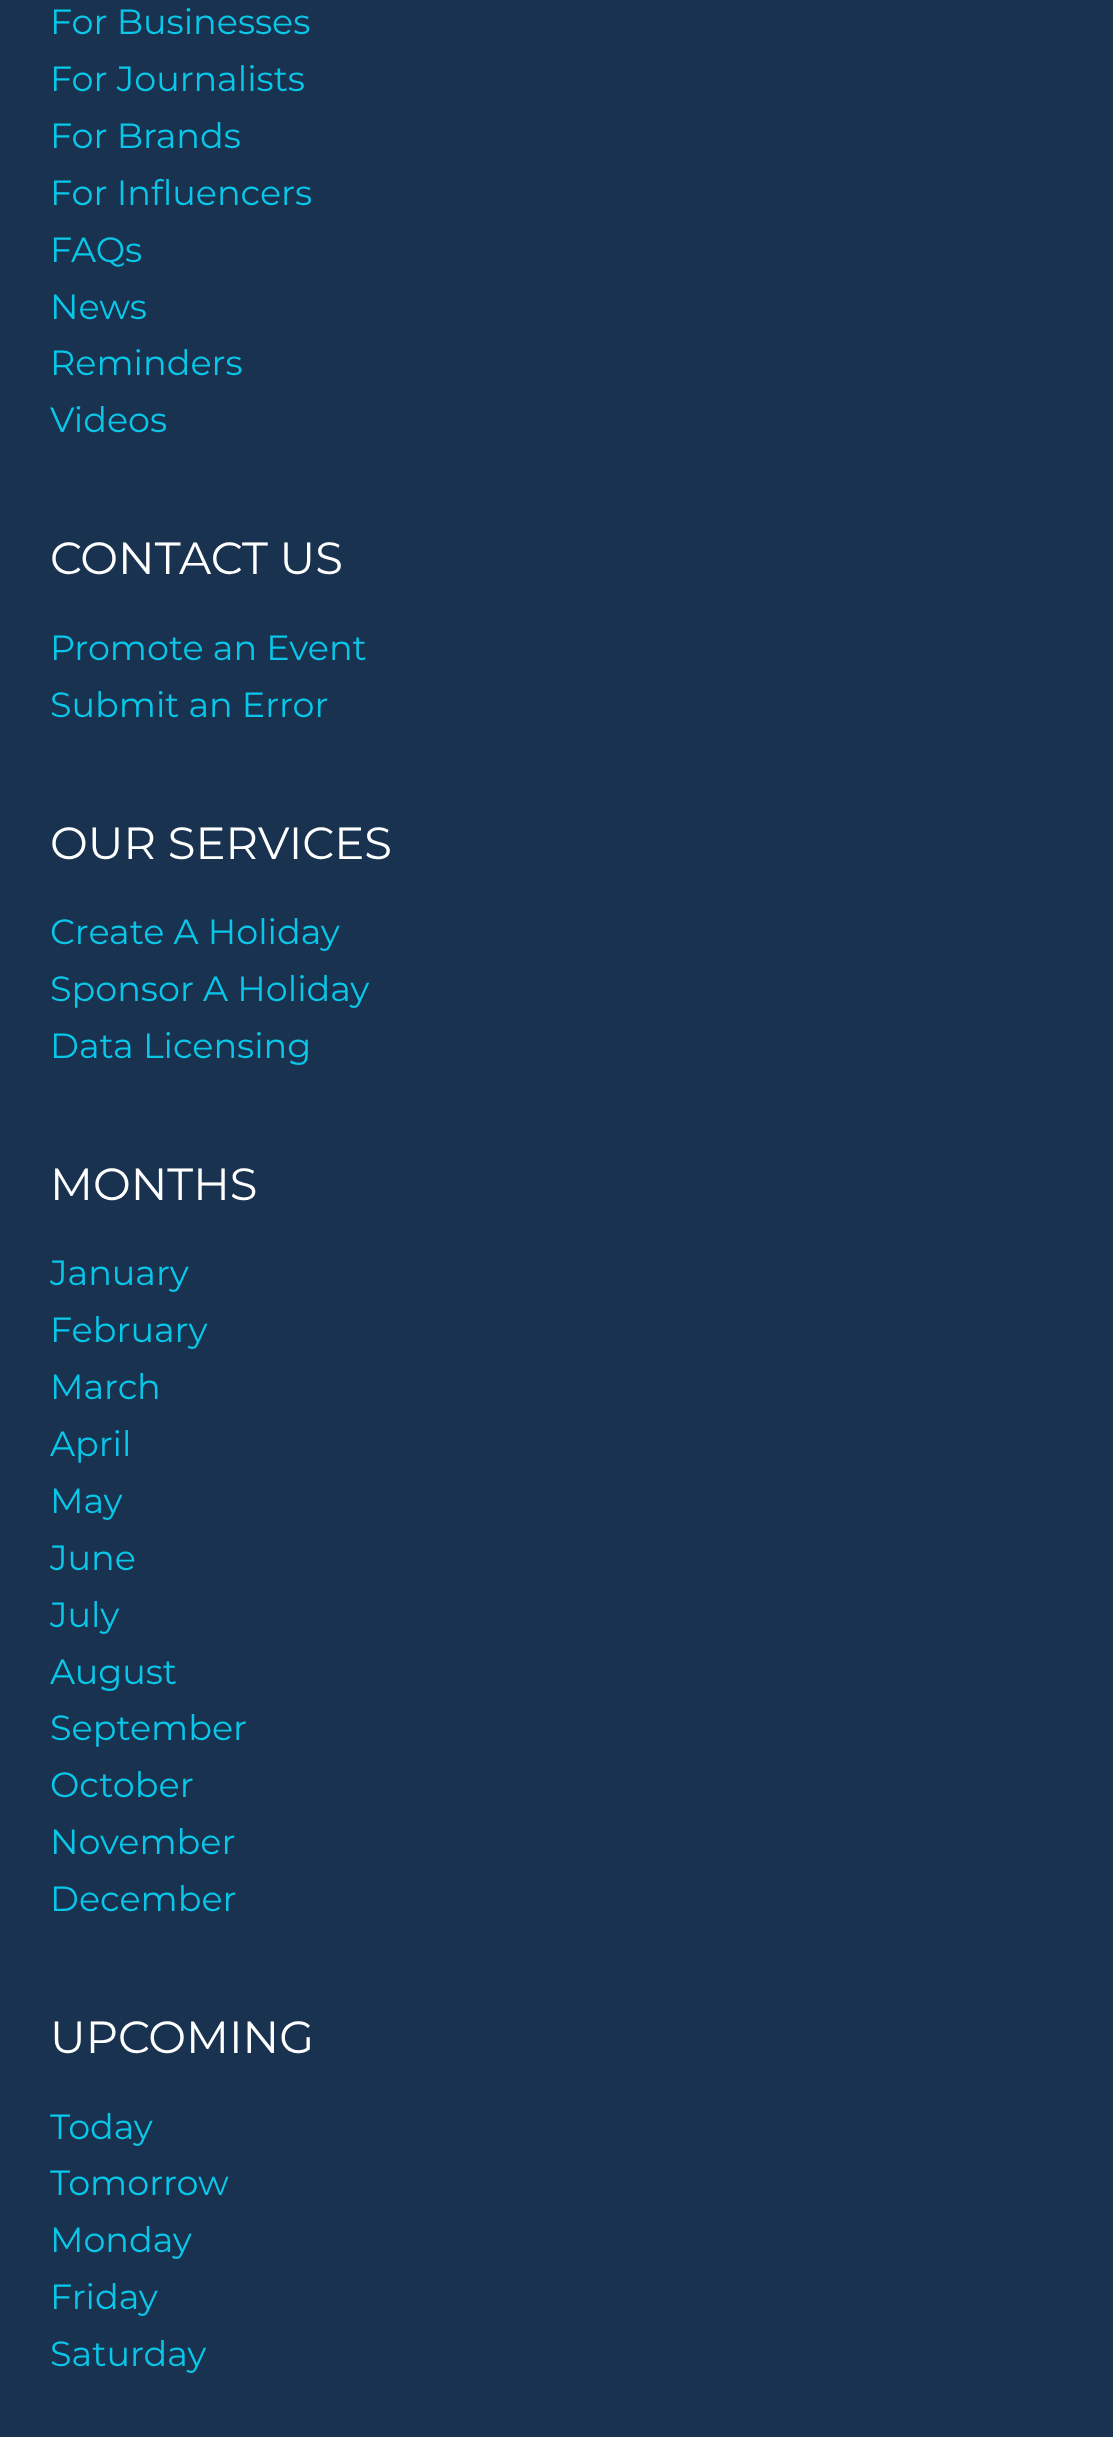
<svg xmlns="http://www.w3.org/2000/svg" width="1113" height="2437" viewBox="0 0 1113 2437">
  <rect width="100%" height="100%" fill="#18324f"/>
  <g font-family="Montserrat" font-size="35" fill="#0ac6e9">
    <text x="50" y="34">For Businesses</text>
    <text x="50" y="91">For Journalists</text>
    <text x="50" y="148">For Brands</text>
    <text x="50" y="205">For Influencers</text>
    <text x="50" y="262">FAQs</text>
    <text x="50" y="319">News</text>
    <text x="50" y="375">Reminders</text>
    <text x="50" y="432">Videos</text>
  </g>
  <text x="50" y="574" font-family="Montserrat" font-size="45" fill="#fff">CONTACT US</text>
  <g font-family="Montserrat" font-size="35" fill="#0ac6e9">
    <text x="50" y="660">Promote an Event</text>
    <text x="50" y="717">Submit an Error</text>
  </g>
  <text x="50" y="859" font-family="Montserrat" font-size="45" fill="#fff">OUR SERVICES</text>
  <g font-family="Montserrat" font-size="35" fill="#0ac6e9">
    <text x="50" y="944">Create A Holiday</text>
    <text x="50" y="1001">Sponsor A Holiday</text>
    <text x="50" y="1058">Data Licensing</text>
  </g>
  <text x="50" y="1200" font-family="Montserrat" font-size="45" fill="#fff">MONTHS</text>
  <g font-family="Montserrat" font-size="35" fill="#0ac6e9">
    <text x="50" y="1285">January</text>
    <text x="50" y="1342">February</text>
    <text x="50" y="1399">March</text>
    <text x="50" y="1456">April</text>
    <text x="50" y="1513">May</text>
    <text x="50" y="1570">June</text>
    <text x="50" y="1627">July</text>
    <text x="50" y="1684">August</text>
    <text x="50" y="1740">September</text>
    <text x="50" y="1797">October</text>
    <text x="50" y="1854">November</text>
    <text x="50" y="1911">December</text>
  </g>
  <text x="50" y="2053" font-family="Montserrat" font-size="45" fill="#fff">UPCOMING</text>
  <g font-family="Montserrat" font-size="35" fill="#0ac6e9">
    <text x="50" y="2139">Today</text>
    <text x="50" y="2195">Tomorrow</text>
    <text x="50" y="2252">Monday</text>
    <text x="50" y="2309">Friday</text>
    <text x="50" y="2366">Saturday</text>
  </g>
</svg>
